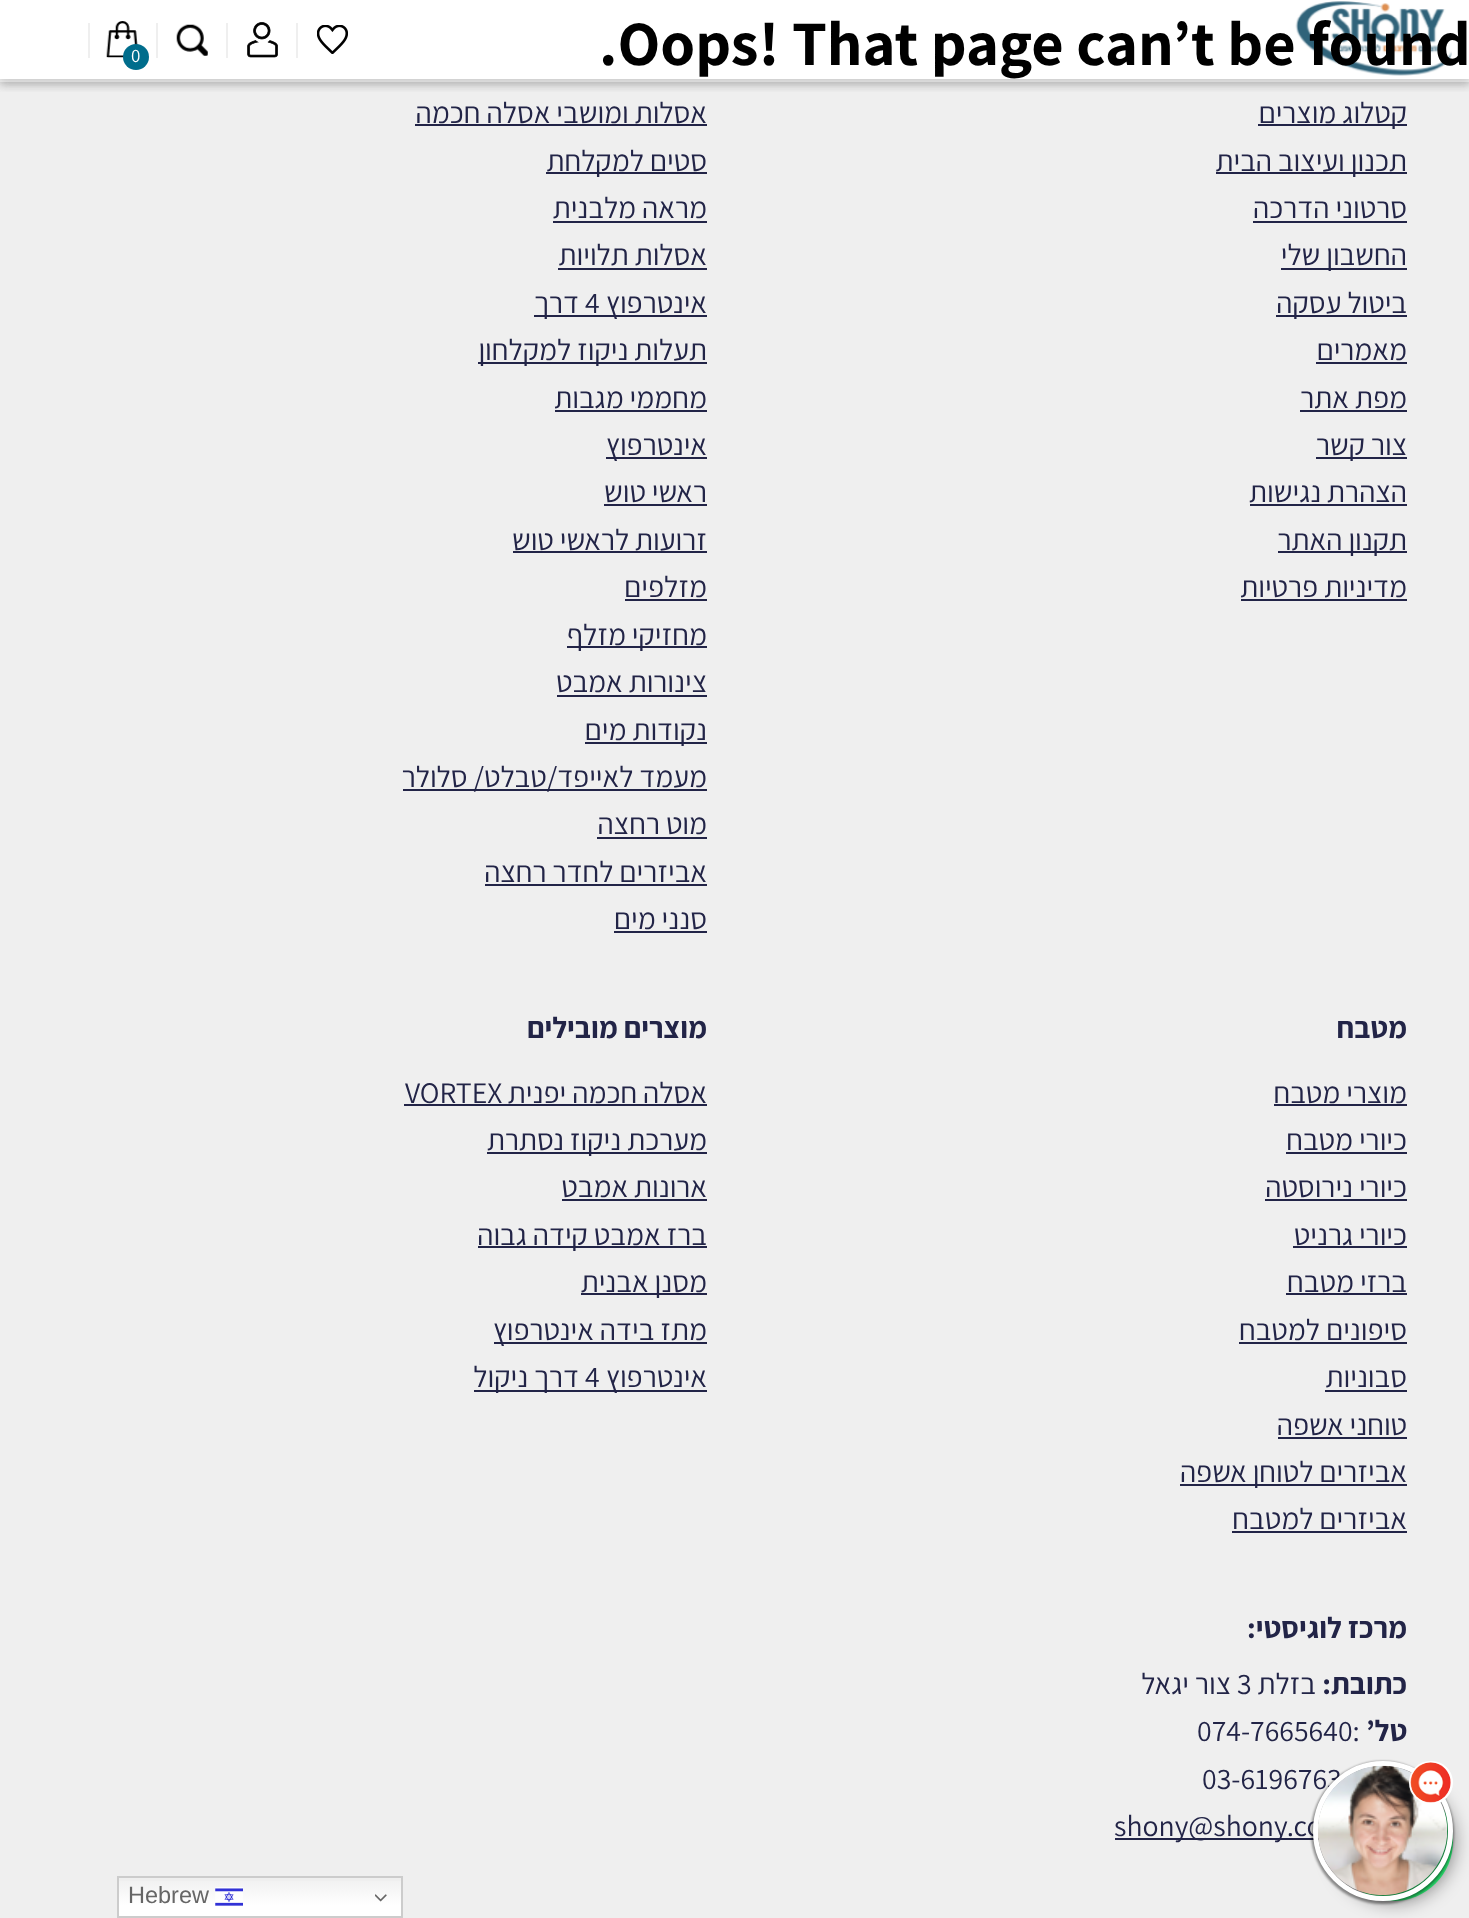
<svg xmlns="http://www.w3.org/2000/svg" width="1469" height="1918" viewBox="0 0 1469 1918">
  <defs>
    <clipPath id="clip1"><path d="M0 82h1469v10H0z"/></clipPath>
    <linearGradient id="g1" gradientUnits="userSpaceOnUse" x1="260" y1="1876" x2="260" y2="1918"><stop offset="0" stop-color="#efefef"/><stop offset="0.7" stop-color="#fff"/></linearGradient>
  </defs>
  <rect width="100%" height="100%" fill="#efefef"/>
  <path d="M0 4h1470v78H0z" fill="#32323233" filter="blur(4.5px)"/>
  <path d="M0 0h1469v79H0z" fill="#fff"/>
  <image x="1295" y="1" width="157" height="75" href="img/1.png"/>
  <image x="317" y="25" width="31" height="29" href="img/2.png"/>
  <path d="M296 23h2v35H296z" fill="#efefef"/>
  <image x="247" y="22" width="31" height="36" href="img/3.png"/>
  <path d="M226 23h2v35H226z" fill="#efefef"/>
  <image x="176" y="24" width="32" height="32" href="img/4.png"/>
  <path d="M156 23h2v35H156z" fill="#efefef"/>
  <image x="106" y="21" width="32" height="37" href="img/5.png"/>
  <path d="M88 23h2v35H88z" fill="#efefef"/>
  <circle cx="136" cy="57" r="13" fill="#006d8c"/>
  <g clip-path="url(#clip1)">
    <path d="M0 4h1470v82H0z" fill="#32323233" filter="blur(4.5px)"/>
  </g>
  <path d="M1258 124h149v2H1258z" fill="#222447"/>
  <path d="M1216 172h191v2H1216z" fill="#222447"/>
  <path d="M1253 221h154v2H1253z" fill="#222447"/>
  <path d="M1281 268h126v2H1281z" fill="#222447"/>
  <path d="M1276 315h131v2H1276z" fill="#222447"/>
  <path d="M1316 362h91v2H1316z" fill="#222447"/>
  <path d="M1300 410h107v2H1300z" fill="#222447"/>
  <path d="M1316 457h91v2H1316z" fill="#222447"/>
  <path d="M1250 504h157v2H1250z" fill="#222447"/>
  <path d="M1278 551h129v2H1278z" fill="#222447"/>
  <path d="M1241 599h166v2H1241z" fill="#222447"/>
  <path d="M415 124h292v2H415z" fill="#222447"/>
  <path d="M546 172h161v2H546z" fill="#222447"/>
  <path d="M553 221h154v2H553z" fill="#222447"/>
  <path d="M558 268h149v2H558z" fill="#222447"/>
  <path d="M534 315h173v2H534z" fill="#222447"/>
  <path d="M478 362h229v2H478z" fill="#222447"/>
  <path d="M555 410h152v2H555z" fill="#222447"/>
  <path d="M606 457h101v2H606z" fill="#222447"/>
  <path d="M604 504h103v2H604z" fill="#222447"/>
  <path d="M513 551h194v2H513z" fill="#222447"/>
  <path d="M625 599h82v2H625z" fill="#222447"/>
  <path d="M567 646h140v2H567z" fill="#222447"/>
  <path d="M557 695h150v2H557z" fill="#222447"/>
  <path d="M585 742h122v2H585z" fill="#222447"/>
  <path d="M403 789h304v2H403z" fill="#222447"/>
  <path d="M597 837h110v2H597z" fill="#222447"/>
  <path d="M485 884h222v2H485z" fill="#222447"/>
  <path d="M614 931h93v2H614z" fill="#222447"/>
  <path d="M1274 1104h133v2H1274z" fill="#222447"/>
  <path d="M1286 1152h121v2H1286z" fill="#222447"/>
  <path d="M1265 1199h142v2H1265z" fill="#222447"/>
  <path d="M1293 1246h114v2H1293z" fill="#222447"/>
  <path d="M1286 1293h121v2H1286z" fill="#222447"/>
  <path d="M1239 1342h168v2H1239z" fill="#222447"/>
  <path d="M1325 1390h82v2H1325z" fill="#222447"/>
  <path d="M1278 1437h129v2H1278z" fill="#222447"/>
  <path d="M1180 1484h227v2H1180z" fill="#222447"/>
  <path d="M1232 1531h175v2H1232z" fill="#222447"/>
  <path d="M404 1104h303v2H404z" fill="#222447"/>
  <path d="M487 1152h220v2H487z" fill="#222447"/>
  <path d="M562 1199h145v2H562z" fill="#222447"/>
  <path d="M478 1246h229v2H478z" fill="#222447"/>
  <path d="M581 1293h126v2H581z" fill="#222447"/>
  <path d="M494 1342h213v2H494z" fill="#222447"/>
  <path d="M474 1390h233v2H474z" fill="#222447"/>
  <path d="M1115 1838h204v2H1115z" fill="#222447"/>
  <rect x="1334" y="1782" width="119" height="119" rx="59.5" fill="#00000080" filter="blur(9.5px)"/>
  <path d="M119 1881h282v35H119z" fill="url(#g1)"/>
  <path d="M118 1877h284v40H118z" fill="none" stroke="#ccc" stroke-width="2"/>
  <image x="375" y="1894" width="12" height="8" href="img/8.png"/>
  <image x="215" y="1887" width="28" height="19" href="img/9.png"/>
  <text x="599" y="65" font-family="Assistant" font-size="63" font-weight="bold" fill="#000">.Oops! That page can’t be found</text>
  <text x="131" y="62" font-family="Assistant" font-size="19" fill="#fff">0</text>
  <g font-family="Assistant" font-size="29.75" direction="rtl" fill="#222447">
    <text x="1407" y="123">קטלוג מוצרים</text>
    <text x="1407" y="171">תכנון ועיצוב הבית</text>
    <text x="1407" y="218">סרטוני הדרכה</text>
    <text x="1407" y="265">החשבון שלי</text>
    <text x="1407" y="313">ביטול עסקה</text>
    <text x="1407" y="360">מאמרים</text>
    <text x="1407" y="408">מפת אתר</text>
    <text x="1407" y="455">צור קשר</text>
    <text x="1407" y="502">הצהרת נגישות</text>
    <text x="1407" y="550">תקנון האתר</text>
    <text x="1407" y="597">מדיניות פרטיות</text>
    <text x="707" y="123">אסלות ומושבי אסלה חכמה</text>
    <text x="707" y="171">סטים למקלחת</text>
    <text x="707" y="218">מראה מלבנית</text>
    <text x="707" y="265">אסלות תלויות</text>
    <text x="707" y="313">אינטרפוץ</text>
  </g>
  <text x="585" y="313" font-family="Assistant" font-size="29.75" fill="#222447">4</text>
  <g font-family="Assistant" font-size="29.75" direction="rtl" fill="#222447">
    <text x="579" y="313">דרך</text>
    <text x="707" y="360">תעלות ניקוז למקלחון</text>
    <text x="707" y="408">מחממי מגבות</text>
    <text x="707" y="455">אינטרפוץ</text>
    <text x="707" y="502">ראשי טוש</text>
    <text x="707" y="550">זרועות לראשי טוש</text>
    <text x="707" y="597">מזלפים</text>
    <text x="707" y="645">מחזיקי מזלף</text>
    <text x="707" y="692">צינורות אמבט</text>
    <text x="707" y="740">נקודות מים</text>
    <text x="707" y="787">מעמד לאייפד/טבלט/ סלולר</text>
    <text x="707" y="834">מוט רחצה</text>
    <text x="707" y="882">אביזרים לחדר רחצה</text>
    <text x="707" y="929">סנני מים</text>
  </g>
  <text x="1407" y="1038" font-family="Assistant" font-size="29.75" font-weight="bold" direction="rtl" fill="#222447">מטבח</text>
  <g font-family="Assistant" font-size="29.75" direction="rtl" fill="#222447">
    <text x="1407" y="1103">מוצרי מטבח</text>
    <text x="1407" y="1150">כיורי מטבח</text>
    <text x="1407" y="1197">כיורי נירוסטה</text>
    <text x="1407" y="1245">כיורי גרניט</text>
    <text x="1407" y="1292">ברזי מטבח</text>
    <text x="1407" y="1340">סיפונים למטבח</text>
    <text x="1407" y="1387">סבוניות</text>
    <text x="1407" y="1435">טוחני אשפה</text>
    <text x="1407" y="1482">אביזרים לטוחן אשפה</text>
    <text x="1407" y="1529">אביזרים למטבח</text>
  </g>
  <text x="707" y="1038" font-family="Assistant" font-size="29.75" font-weight="bold" direction="rtl" fill="#222447">מוצרים מובילים</text>
  <text x="707" y="1103" font-family="Assistant" font-size="29.75" direction="rtl" fill="#222447">אסלה חכמה יפנית</text>
  <text x="405" y="1103" font-family="Assistant" font-size="29.75" fill="#222447">VORTEX</text>
  <g font-family="Assistant" font-size="29.75" direction="rtl" fill="#222447">
    <text x="707" y="1150">מערכת ניקוז נסתרת</text>
    <text x="707" y="1197">ארונות אמבט</text>
    <text x="707" y="1245">ברז אמבט קידה גבוה</text>
    <text x="707" y="1292">מסנן אבנית</text>
    <text x="707" y="1340">מתז בידה אינטרפוץ</text>
    <text x="707" y="1387">אינטרפוץ</text>
  </g>
  <text x="585" y="1387" font-family="Assistant" font-size="29.75" fill="#222447">4</text>
  <text x="579" y="1387" font-family="Assistant" font-size="29.75" direction="rtl" fill="#222447">דרך ניקול</text>
  <g font-family="Assistant" font-size="29.75" font-weight="bold" direction="rtl" fill="#222447">
    <text x="1407" y="1638">מרכז לוגיסטי:</text>
    <text x="1407" y="1694">כתובת:</text>
  </g>
  <text x="1316" y="1694" font-family="Assistant" font-size="29.75" direction="rtl" fill="#222447">בזלת</text>
  <text x="1237" y="1694" font-family="Assistant" font-size="29.75" fill="#222447">3</text>
  <text x="1231" y="1694" font-family="Assistant" font-size="29.75" direction="rtl" fill="#222447">צור יגאל</text>
  <text x="1407" y="1741" font-family="Assistant" font-size="29.75" font-weight="bold" direction="rtl" fill="#222447">טל’</text>
  <g font-family="Assistant" font-size="29.75" fill="#222447">
    <text x="1197" y="1741">074-7665640:</text>
    <text x="1202" y="1789">03-6196763</text>
    <text x="1114" y="1836">shony@shony.co</text>
  </g>
  <circle cx="1393.5" cy="1841.5" r="59.5" fill="#25d366"/>
  <rect x="1311" y="1761" width="143" height="143" rx="71.5" fill="#00000066" filter="blur(1px)"/>
  <circle cx="1383" cy="1831" r="67.5" fill="none" stroke="#fff" stroke-width="5"/>
  <image x="1318" y="1765" width="130" height="131" href="img/6.png"/>
  <rect x="1410" y="1762" width="42" height="41" rx="20.5" fill="#fff" stroke="#fff" stroke-width="2"/>
  <image x="1410" y="1762" width="41" height="41" href="img/7.png"/>
  <text x="128" y="1903" font-family="Liberation Sans" font-size="23.5" fill="#666">Hebrew</text>
</svg>
